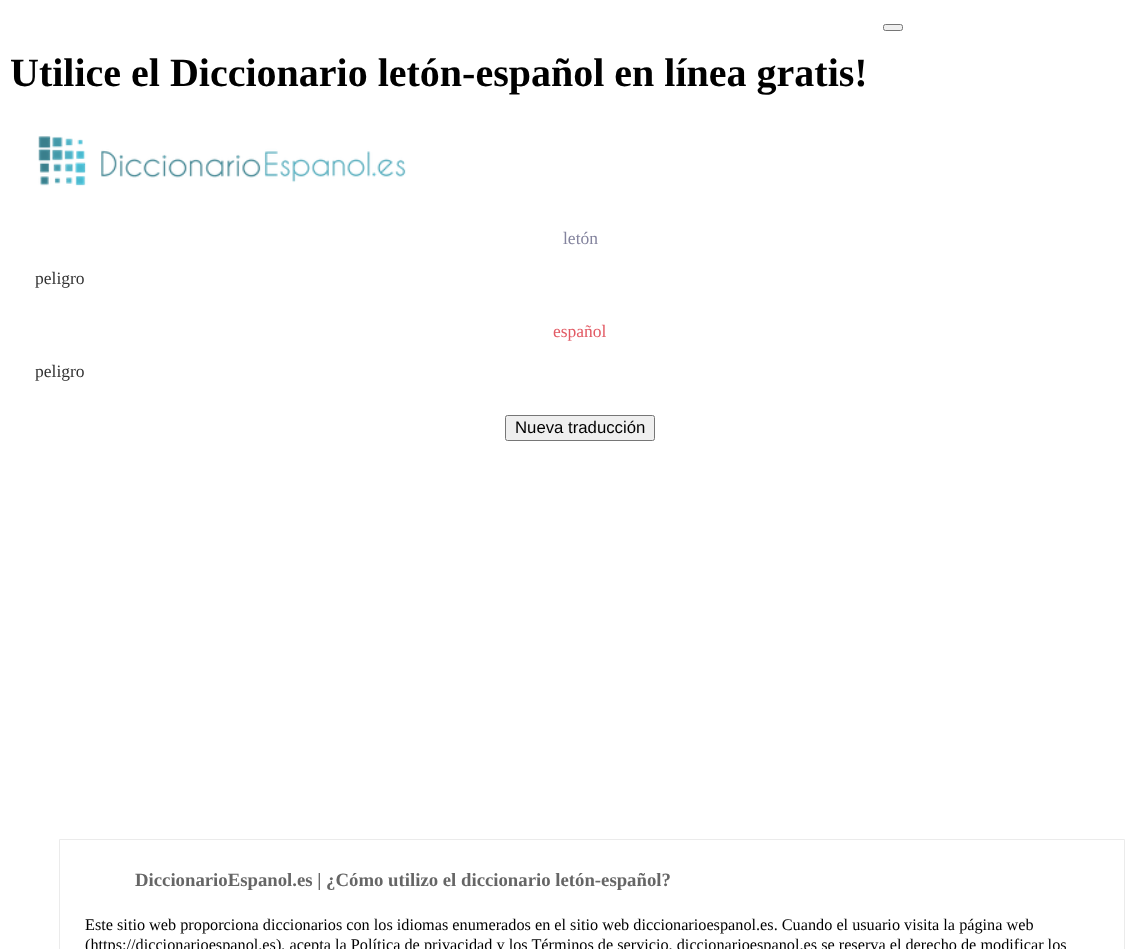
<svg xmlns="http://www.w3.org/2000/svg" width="1135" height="949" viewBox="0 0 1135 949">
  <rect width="100%" height="100%" fill="#fff"/>
  <rect x="883.5" y="24.5" width="19" height="6" rx="2" fill="#efefef" stroke="#767676"/>
  <image x="38" y="136" width="368" height="50" href="img/1.png"/>
  <rect x="505.5" y="415.5" width="149" height="25" rx="2" fill="#efefef" stroke="#767676"/>
  <path d="M59.5 839.5h1065v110H59.5z" fill="none" stroke="#ebebeb"/>
  <text x="10" y="86" font-family="Liberation Serif" font-size="40" font-weight="bold" fill="#000">Utilice el Diccionario letón-español en línea gratis!</text>
  <text x="563" y="244" font-family="Liberation Serif" font-size="17.5" fill="#84849e">letón</text>
  <text x="35" y="284" font-family="Liberation Serif" font-size="17.5" fill="#333">peligro</text>
  <text x="553" y="337" font-family="Liberation Serif" font-size="17.5" fill="#e25a64">español</text>
  <text x="35" y="377" font-family="Liberation Serif" font-size="17.5" fill="#333">peligro</text>
  <text x="515" y="433" font-family="Liberation Sans" font-size="16.75" fill="#000">Nueva traducción</text>
  <text x="135" y="886" font-family="Liberation Serif" font-size="18.75" font-weight="bold" fill="#666">DiccionarioEspanol.es | ¿Cómo utilizo el diccionario letón-español?</text>
  <g font-family="Liberation Serif" font-size="16.25" fill="#000">
    <text x="85" y="930">Este sitio web proporciona diccionarios con los idiomas enumerados en el sitio web diccionarioespanol.es. Cuando el usuario visita la página web</text>
    <text x="85" y="950">(https://diccionarioespanol.es), acepta la Política de privacidad y los Términos de servicio. diccionarioespanol.es se reserva el derecho de modificar los</text>
  </g>
</svg>
